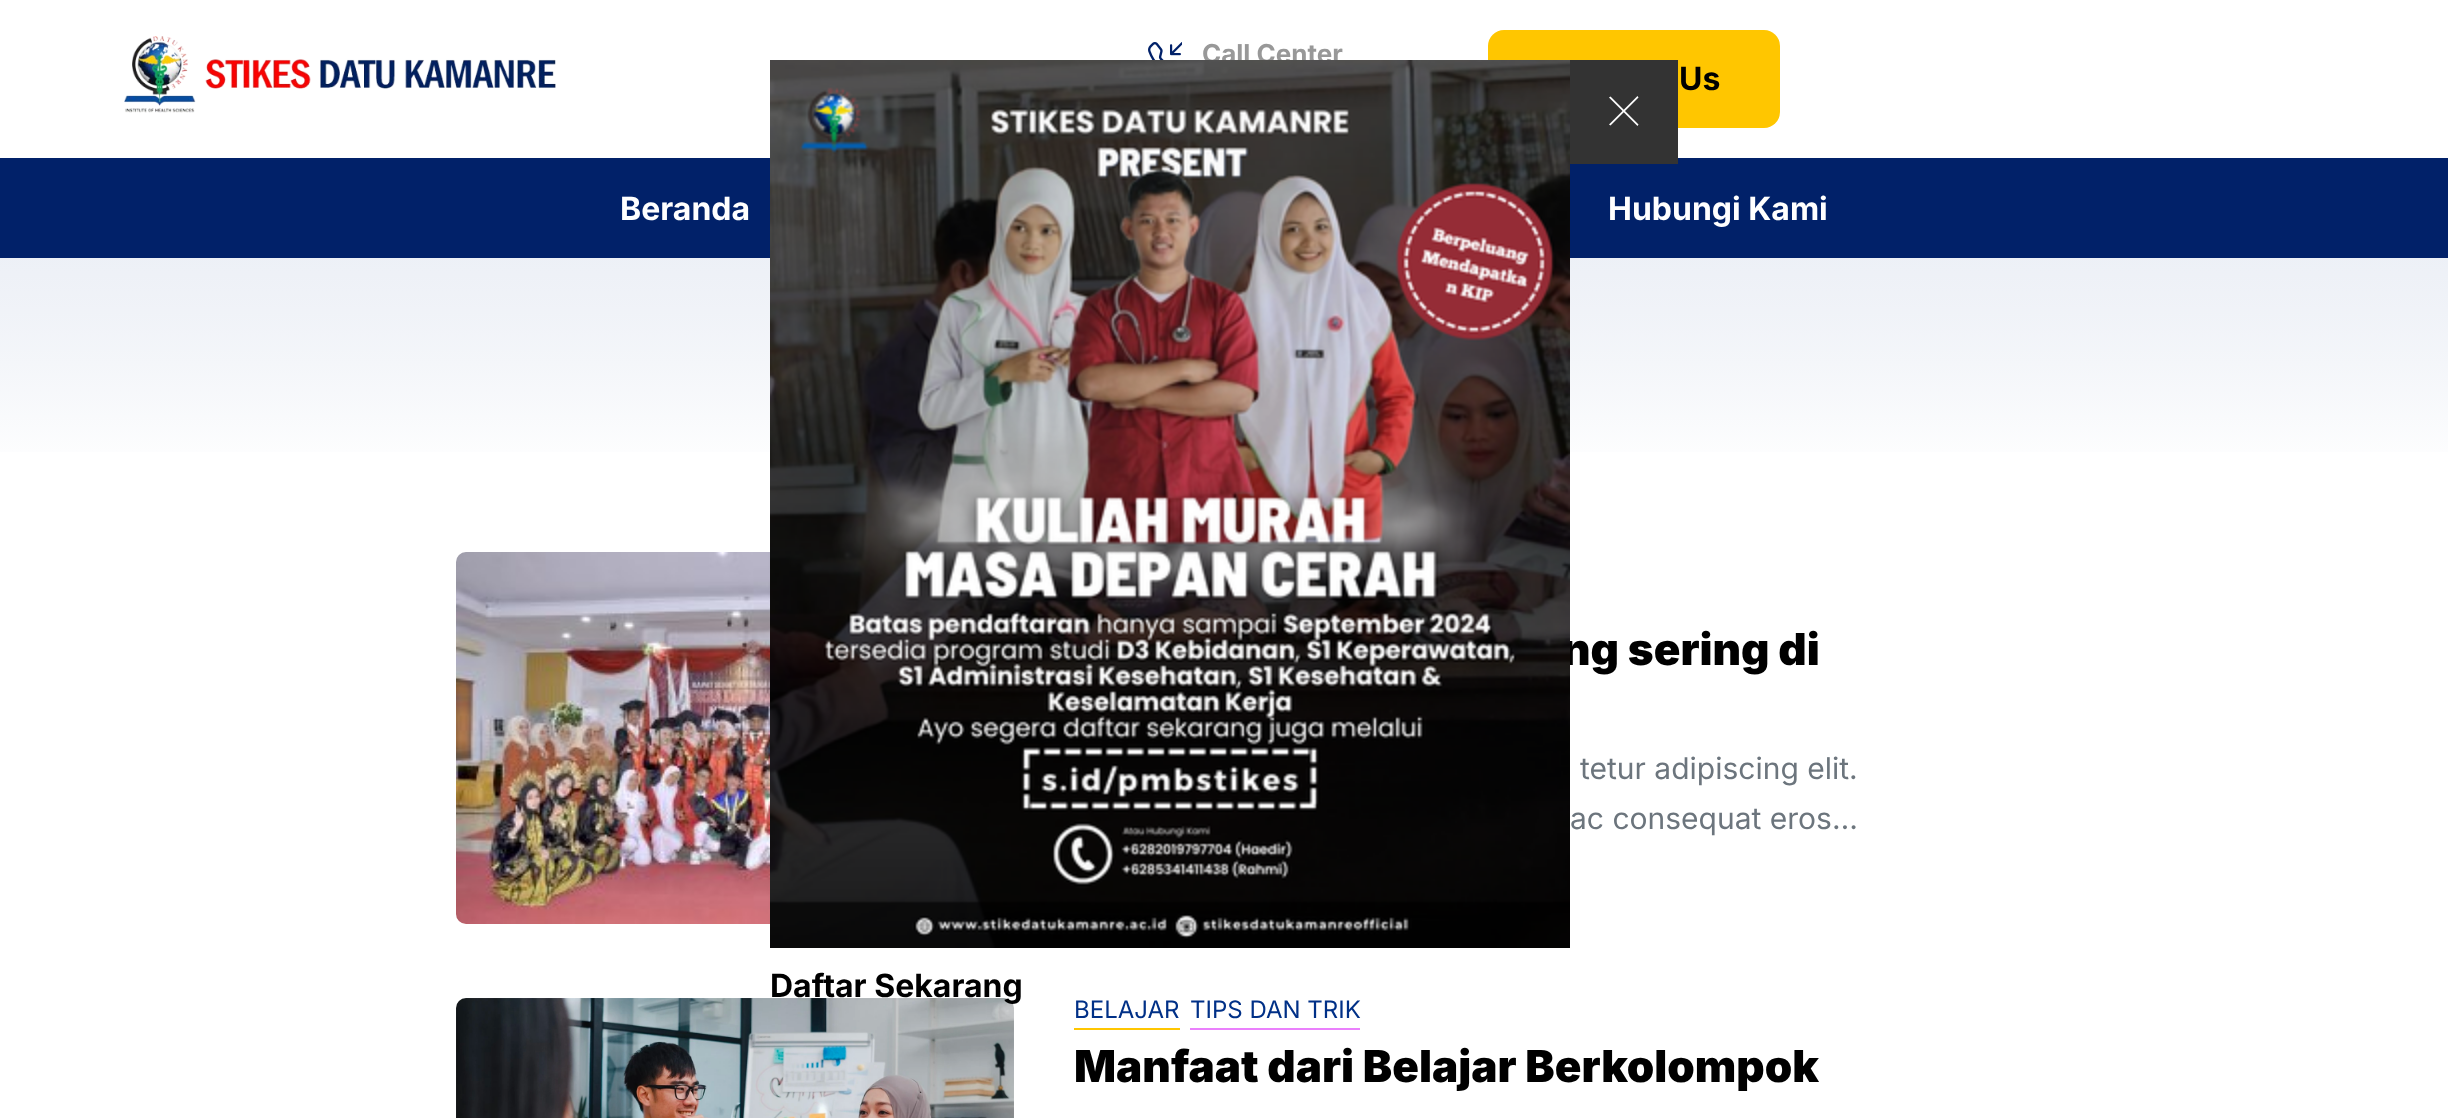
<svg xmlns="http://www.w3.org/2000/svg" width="2448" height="1118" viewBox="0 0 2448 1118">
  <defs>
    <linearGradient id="g1" gradientUnits="userSpaceOnUse" x1="1224" y1="472" x2="1224" y2="258"><stop offset="0" stop-color="#fff" stop-opacity="0.1"/><stop offset="1" stop-color="#002f87" stop-opacity="0.07"/></linearGradient>
  </defs>
  <rect width="100%" height="100%" fill="#fff"/>
  <image x="124" y="36" width="432" height="77" href="img/1.png"/>
  <image x="1148" y="42" width="34" height="18" href="img/2.png"/>
  <rect x="1488" y="30" width="292" height="98" rx="16" fill="#ffc600"/>
  <path d="M0 158h2448v100H0z" fill="#012169"/>
  <path d="M0 258h2448v194H0z" fill="url(#g1)"/>
  <path d="M1570 60h108v104H1570z" fill="#333"/>
  <path d="M1609 124.5L1637.5 96L1638.5 97.5L1610.5 125.5Z" fill="#fff"/>
  <path d="M1610.5 96.5L1638.5 124.5L1637.5 126L1609 97.5Z" fill="#fff"/>
  <image x="456" y="552" width="314" height="372" href="img/4.png"/>
  <image x="456" y="998" width="558" height="120" href="img/5.png"/>
  <path d="M1074 1028h106v2H1074z" fill="#ffc600"/>
  <path d="M1190 1028h170v2H1190z" fill="#ea80fc"/>
  <text x="1202" y="63" font-family="Inter" font-size="26" font-weight="bold" fill="#989898">Call Center</text>
  <text x="1679" y="90" font-family="Inter" font-size="32" font-weight="bold" fill="#000">Us</text>
  <g font-family="Inter" font-size="32" font-weight="bold" fill="#fff">
    <text x="620" y="220">Beranda</text>
    <text x="1608" y="220">Hubungi Kami</text>
  </g>
  <text x="770" y="997" font-family="Inter" font-size="32" font-weight="bold" fill="#000">Daftar Sekarang</text>
  <text x="1562" y="665" font-family="Inter" font-size="44" font-weight="900" fill="#000">ng sering di</text>
  <image x="770" y="60" width="800" height="888" href="img/3.png"/>
  <g font-family="Inter" font-size="30" fill="#6c757d">
    <text x="1580" y="779">tetur adipiscing elit.</text>
    <text x="1570" y="829">ac consequat eros…</text>
  </g>
  <g font-family="Inter" font-size="24" fill="#003087">
    <text x="1074" y="1018">BELAJAR</text>
    <text x="1190" y="1018">TIPS DAN TRIK</text>
  </g>
  <text x="1074" y="1082" font-family="Inter" font-size="44" font-weight="900" fill="#000">Manfaat dari Belajar Berkolompok</text>
</svg>
